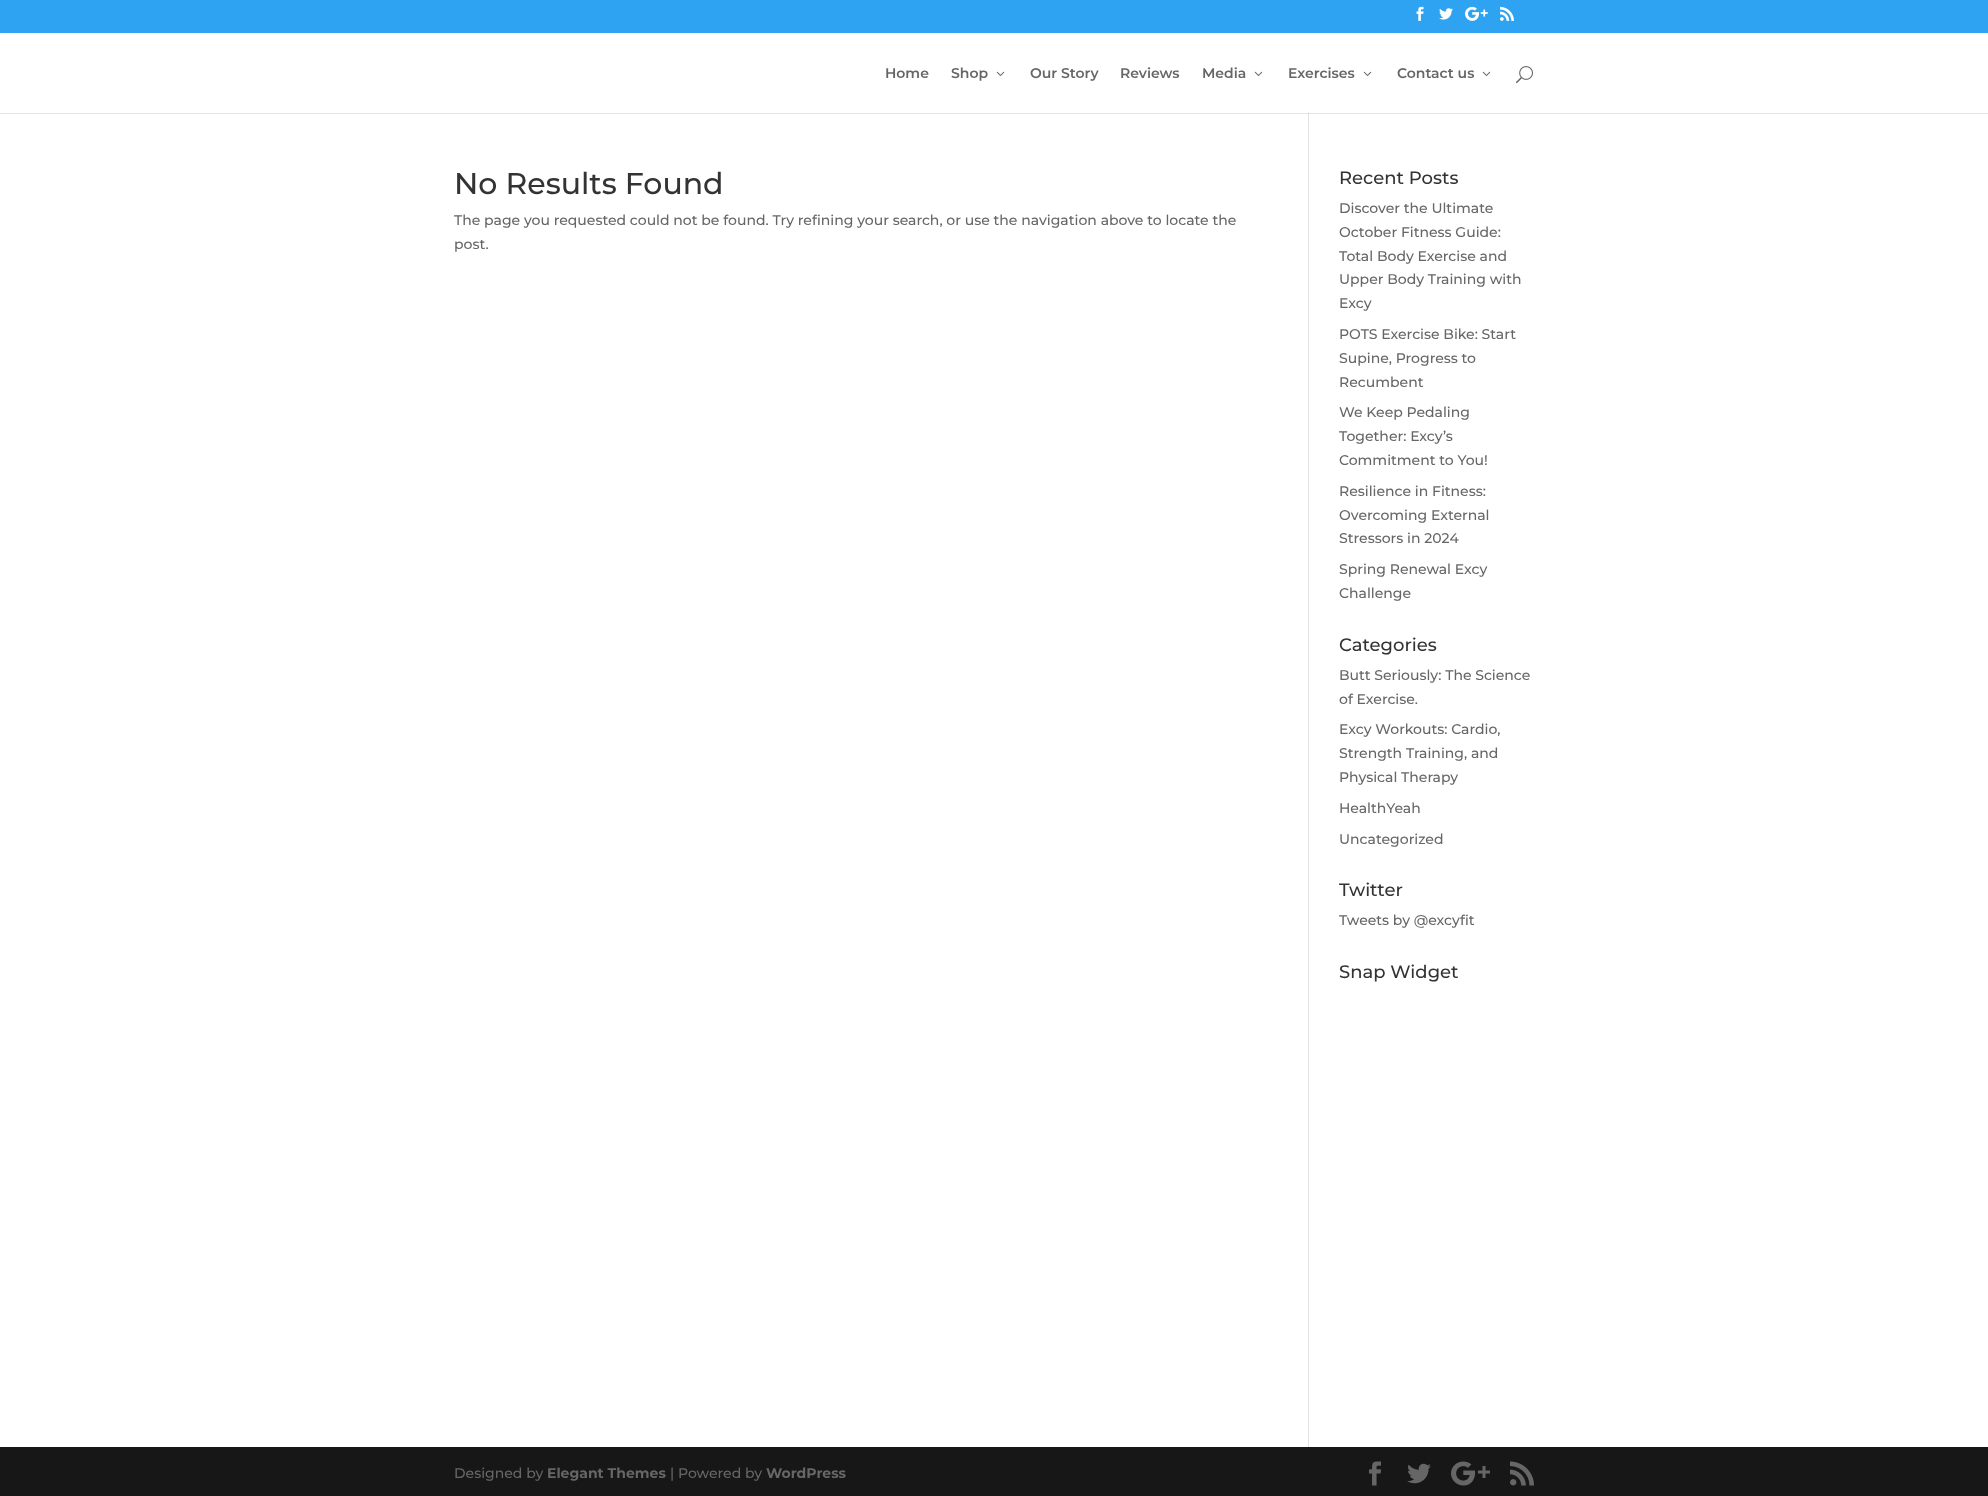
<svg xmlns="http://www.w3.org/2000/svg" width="1988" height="1496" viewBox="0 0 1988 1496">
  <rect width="100%" height="100%" fill="#fff"/>
  <path d="M0 113h1988v1H0z" fill="#e6e6e6"/>
  <path d="M0 0h1988v33H0z" fill="#2ea3f2"/>
  <image x="1416" y="6" width="8" height="15" href="img/1.png"/>
  <image x="1439" y="8" width="14" height="12" href="img/2.png"/>
  <image x="1465" y="6" width="23" height="15" href="img/3.png"/>
  <image x="1500" y="6" width="14" height="15" href="img/4.png"/>
  <path d="M1308 111h1v1336H1308z" fill="#e2e2e2"/>
  <path d="M1308 111h1v2H1308z" fill="#fff"/>
  <image x="996" y="71" width="9" height="5" href="img/5.png"/>
  <image x="1254" y="71" width="9" height="5" href="img/5.png"/>
  <image x="1363" y="71" width="9" height="5" href="img/5.png"/>
  <image x="1482" y="71" width="9" height="5" href="img/5.png"/>
  <image x="1516" y="66" width="17" height="18" href="img/6.png"/>
  <path d="M1308 113h1v1H1308z" fill="#cbcbcb"/>
  <path d="M0 1447h1988v49H0z" fill="#171717"/>
  <image x="1369" y="1461" width="12" height="25" href="img/7.png"/>
  <image x="1407" y="1463" width="24" height="21" href="img/8.png"/>
  <image x="1451" y="1461" width="39" height="25" href="img/9.png"/>
  <image x="1510" y="1461" width="24" height="25" href="img/10.png"/>
  <g font-family="Montserrat" font-size="14" font-weight="600" fill="#666">
    <text x="885" y="78">Home</text>
    <text x="951" y="78">Shop</text>
    <text x="1030" y="78">Our Story</text>
    <text x="1120" y="78">Reviews</text>
    <text x="1202" y="78">Media</text>
    <text x="1288" y="78">Exercises</text>
    <text x="1397" y="78">Contact us</text>
  </g>
  <text x="454" y="194" font-family="Montserrat" font-size="30" font-weight="500" fill="#333">No Results Found</text>
  <g font-family="Montserrat" font-size="14" font-weight="500" fill="#666">
    <text x="454" y="225">The page you requested could not be found. Try refining your search, or use the navigation above to locate the</text>
    <text x="454" y="249">post.</text>
  </g>
  <text x="1339" y="184" font-family="Montserrat" font-size="18" font-weight="500" fill="#333">Recent Posts</text>
  <g font-family="Montserrat" font-size="14" font-weight="500" fill="#666">
    <text x="1339" y="213">Discover the Ultimate</text>
    <text x="1339" y="237">October Fitness Guide:</text>
    <text x="1339" y="261">Total Body Exercise and</text>
    <text x="1339" y="284">Upper Body Training with</text>
    <text x="1339" y="308">Excy</text>
    <text x="1339" y="339">POTS Exercise Bike: Start</text>
    <text x="1339" y="363">Supine, Progress to</text>
    <text x="1339" y="387">Recumbent</text>
    <text x="1339" y="417">We Keep Pedaling</text>
    <text x="1339" y="441">Together: Excy’s</text>
    <text x="1339" y="465">Commitment to You!</text>
    <text x="1339" y="496">Resilience in Fitness:</text>
    <text x="1339" y="520">Overcoming External</text>
    <text x="1339" y="543">Stressors in 2024</text>
    <text x="1339" y="574">Spring Renewal Excy</text>
    <text x="1339" y="598">Challenge</text>
  </g>
  <text x="1339" y="651" font-family="Montserrat" font-size="18" font-weight="500" fill="#333">Categories</text>
  <g font-family="Montserrat" font-size="14" font-weight="500" fill="#666">
    <text x="1339" y="680">Butt Seriously: The Science</text>
    <text x="1339" y="704">of Exercise.</text>
    <text x="1339" y="734">Excy Workouts: Cardio,</text>
    <text x="1339" y="758">Strength Training, and</text>
    <text x="1339" y="782">Physical Therapy</text>
    <text x="1339" y="813">HealthYeah</text>
    <text x="1339" y="844">Uncategorized</text>
  </g>
  <text x="1339" y="896" font-family="Montserrat" font-size="18" font-weight="500" fill="#333">Twitter</text>
  <text x="1339" y="925" font-family="Montserrat" font-size="14" font-weight="500" fill="#666">Tweets by @excyfit</text>
  <text x="1339" y="978" font-family="Montserrat" font-size="18" font-weight="500" fill="#333">Snap Widget</text>
  <text x="454" y="1478" font-family="Montserrat" font-size="14" font-weight="500" fill="#666">Designed by</text>
  <text x="547" y="1478" font-family="Montserrat" font-size="14" font-weight="bold" fill="#666">Elegant Themes</text>
  <text x="670" y="1478" font-family="Montserrat" font-size="14" font-weight="500" fill="#666">| Powered by</text>
  <text x="766" y="1478" font-family="Montserrat" font-size="14" font-weight="bold" fill="#666">WordPress</text>
</svg>
